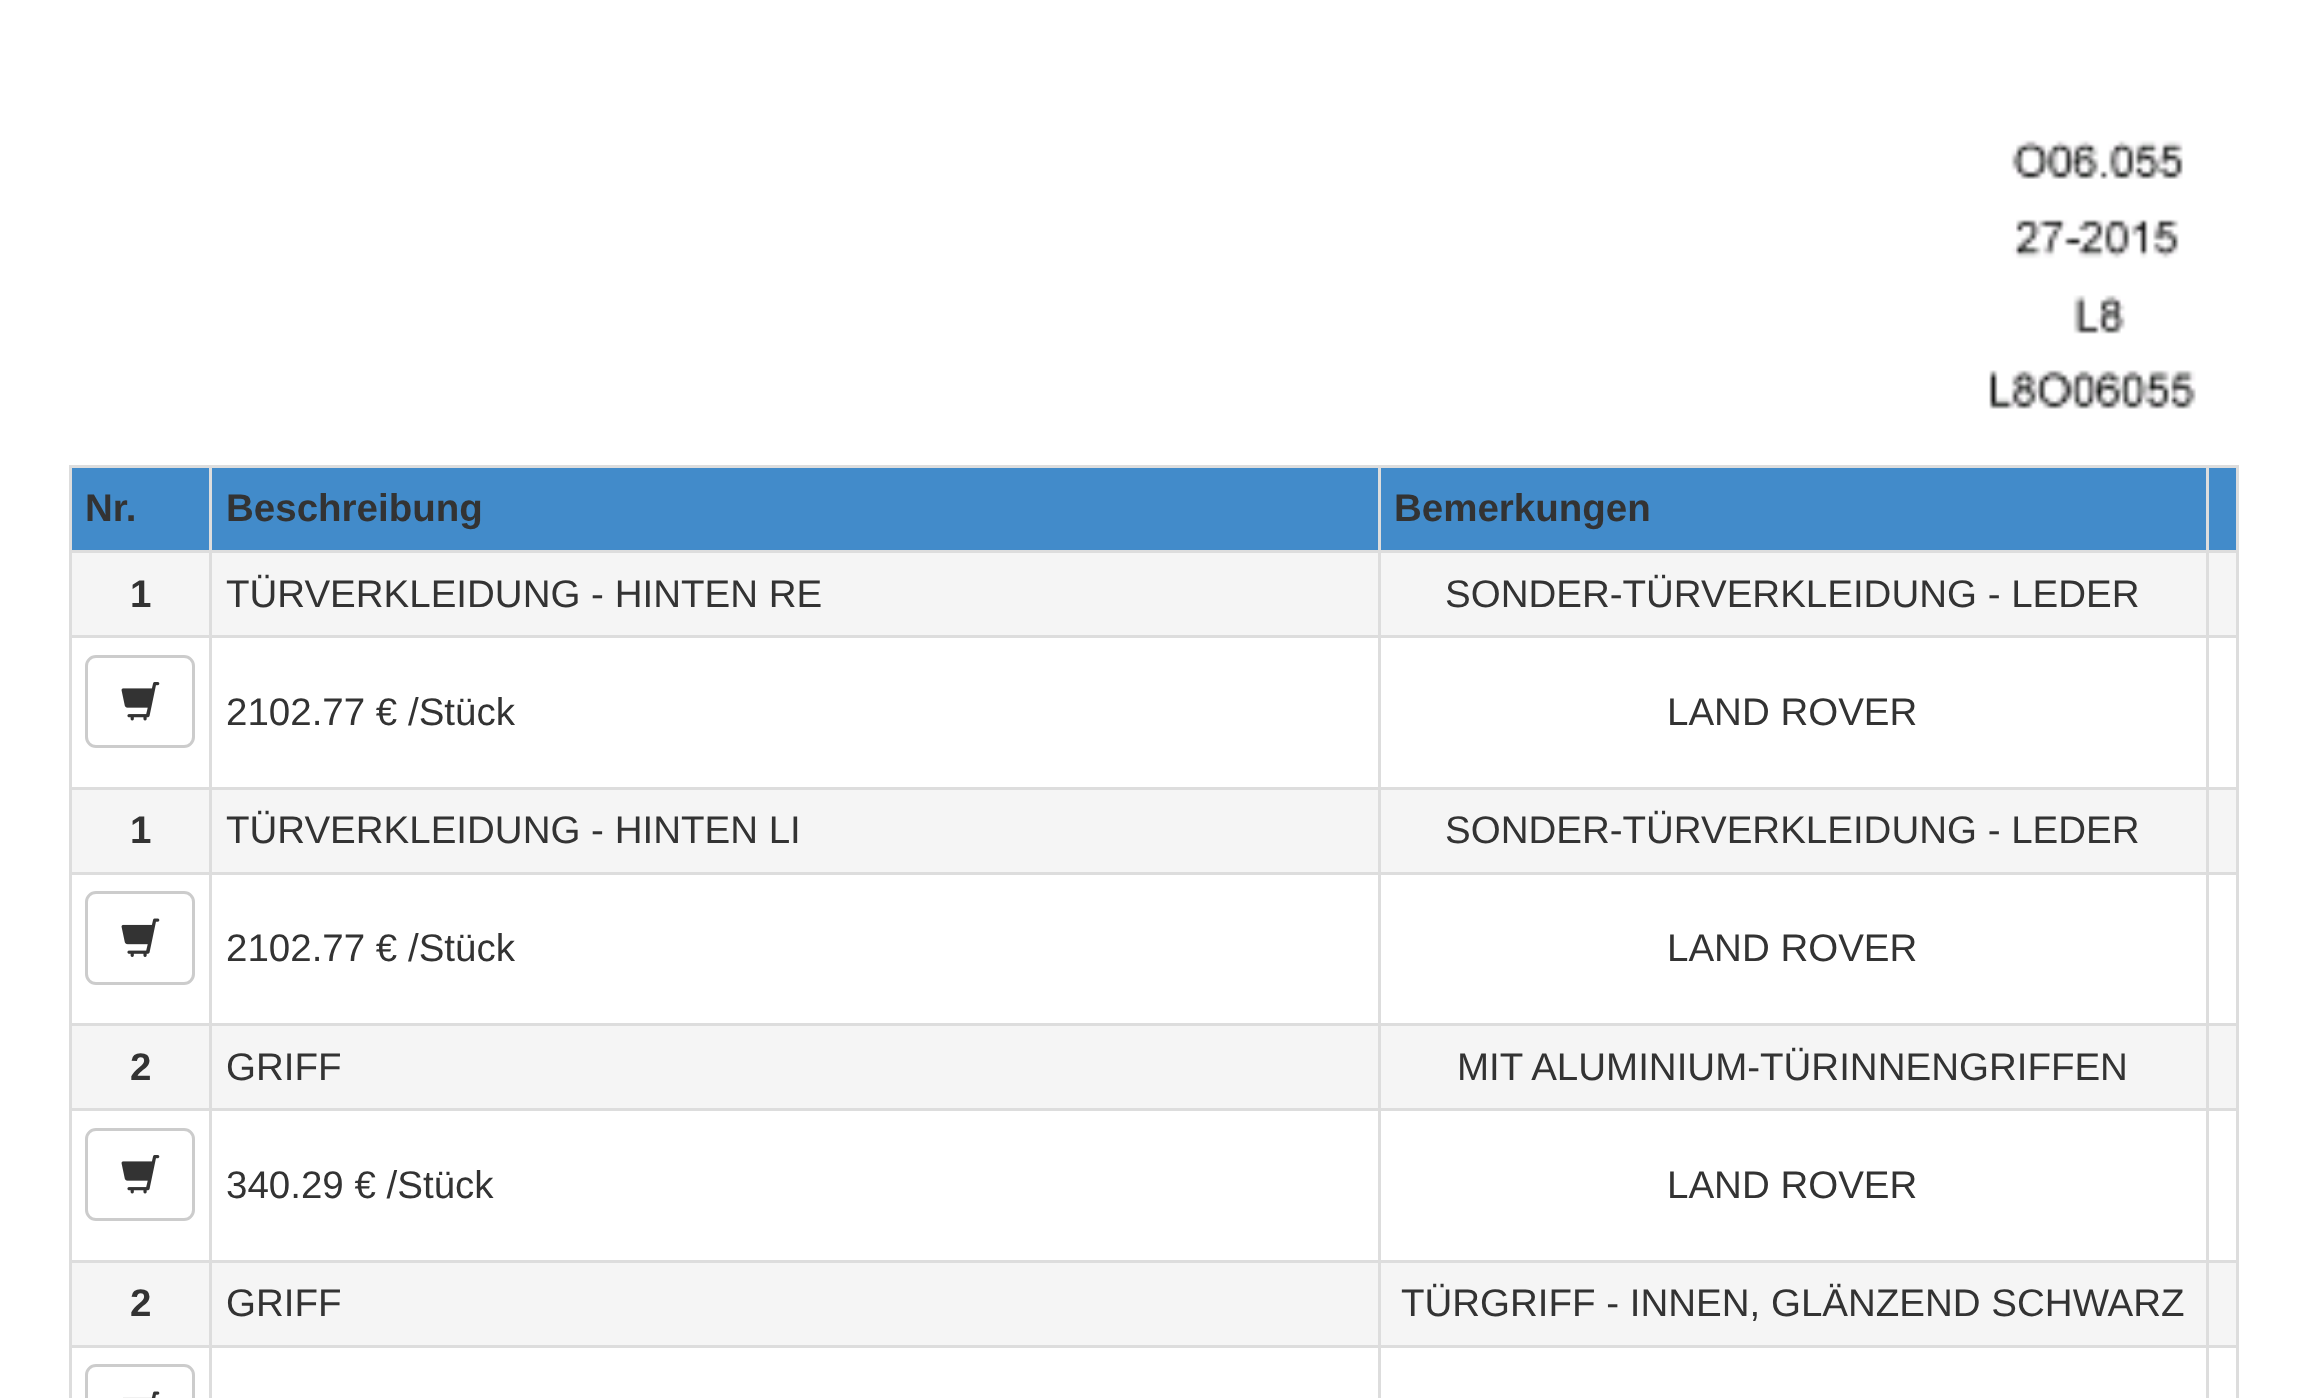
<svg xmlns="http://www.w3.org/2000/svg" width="2307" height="1398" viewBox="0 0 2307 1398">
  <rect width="100%" height="100%" fill="#fff"/>
  <image x="1989" y="140" width="207" height="269" href="img/1.png"/>
  <path d="M69 465h2170v3H69z" fill="#ddd"/>
  <path d="M2236 465h3v933H2236z" fill="#ddd"/>
  <path d="M69 465h3v933H69z" fill="#ddd"/>
  <path d="M72 468h2164v82H72z" fill="#428bca"/>
  <path d="M2206 550h33v3H2206z" fill="#ddd"/>
  <path d="M2206 635h33v3H2206z" fill="#ddd"/>
  <path d="M2206 787h33v3H2206z" fill="#ddd"/>
  <path d="M2206 872h33v3H2206z" fill="#ddd"/>
  <path d="M2206 1023h33v3H2206z" fill="#ddd"/>
  <path d="M2206 1108h33v3H2206z" fill="#ddd"/>
  <path d="M2206 1260h33v3H2206z" fill="#ddd"/>
  <path d="M2206 1345h33v3H2206z" fill="#ddd"/>
  <path d="M2206 1345h3v53H2206z" fill="#ddd"/>
  <path d="M1378 1345h830v3H1378z" fill="#ddd"/>
  <path d="M2206 1260h3v88H2206z" fill="#ddd"/>
  <path d="M1378 1260h830v3H1378z" fill="#ddd"/>
  <path d="M2206 1108h3v154H2206z" fill="#ddd"/>
  <path d="M1378 1108h830v3H1378z" fill="#ddd"/>
  <path d="M2206 1023h3v88H2206z" fill="#ddd"/>
  <path d="M1378 1023h830v3H1378z" fill="#ddd"/>
  <path d="M2206 872h3v154H2206z" fill="#ddd"/>
  <path d="M1378 872h830v3H1378z" fill="#ddd"/>
  <path d="M2206 787h3v88H2206z" fill="#ddd"/>
  <path d="M1378 787h830v3H1378z" fill="#ddd"/>
  <path d="M2206 635h3v154H2206z" fill="#ddd"/>
  <path d="M1378 635h830v3H1378z" fill="#ddd"/>
  <path d="M2206 550h3v88H2206z" fill="#ddd"/>
  <path d="M1378 550h830v3H1378z" fill="#ddd"/>
  <path d="M1378 1345h3v53H1378z" fill="#ddd"/>
  <path d="M209 1345h1172v3H209z" fill="#ddd"/>
  <path d="M1378 1260h3v88H1378z" fill="#ddd"/>
  <path d="M209 1260h1172v3H209z" fill="#ddd"/>
  <path d="M1378 1108h3v154H1378z" fill="#ddd"/>
  <path d="M209 1108h1172v3H209z" fill="#ddd"/>
  <path d="M1378 1023h3v88H1378z" fill="#ddd"/>
  <path d="M209 1023h1172v3H209z" fill="#ddd"/>
  <path d="M1378 872h3v154H1378z" fill="#ddd"/>
  <path d="M209 872h1172v3H209z" fill="#ddd"/>
  <path d="M1378 787h3v88H1378z" fill="#ddd"/>
  <path d="M209 787h1172v3H209z" fill="#ddd"/>
  <path d="M1378 635h3v154H1378z" fill="#ddd"/>
  <path d="M209 635h1172v3H209z" fill="#ddd"/>
  <path d="M1378 550h3v88H1378z" fill="#ddd"/>
  <path d="M209 550h1172v3H209z" fill="#ddd"/>
  <path d="M209 1345h3v53H209z" fill="#ddd"/>
  <path d="M69 1345h143v3H69z" fill="#ddd"/>
  <path d="M209 1260h3v88H209z" fill="#ddd"/>
  <path d="M69 1260h143v3H69z" fill="#ddd"/>
  <path d="M209 1108h3v154H209z" fill="#ddd"/>
  <path d="M69 1108h143v3H69z" fill="#ddd"/>
  <path d="M209 1023h3v88H209z" fill="#ddd"/>
  <path d="M69 1023h143v3H69z" fill="#ddd"/>
  <path d="M209 872h3v154H209z" fill="#ddd"/>
  <path d="M69 872h143v3H69z" fill="#ddd"/>
  <path d="M209 787h3v88H209z" fill="#ddd"/>
  <path d="M69 787h143v3H69z" fill="#ddd"/>
  <path d="M209 635h3v154H209z" fill="#ddd"/>
  <path d="M69 635h143v3H69z" fill="#ddd"/>
  <path d="M209 550h3v88H209z" fill="#ddd"/>
  <path d="M69 550h143v3H69z" fill="#ddd"/>
  <path d="M209 465h3v88H209z" fill="#ddd"/>
  <path d="M2206 465h3v88H2206z" fill="#ddd"/>
  <path d="M1378 465h3v88H1378z" fill="#ddd"/>
  <path d="M72 553h137v82H72z" fill="#f5f5f5"/>
  <path d="M212 553h1166v82H212z" fill="#f5f5f5"/>
  <path d="M1381 553h825v82H1381z" fill="#f5f5f5"/>
  <path d="M2209 553h27v82H2209z" fill="#f5f5f5"/>
  <rect x="86.5" y="656.5" width="107" height="90" rx="9.5" fill="none" stroke="#ccc" stroke-width="3"/>
  <image x="121" y="682" width="39" height="39" href="img/2.png"/>
  <path d="M72 790h137v82H72z" fill="#f5f5f5"/>
  <path d="M212 790h1166v82H212z" fill="#f5f5f5"/>
  <path d="M1381 790h825v82H1381z" fill="#f5f5f5"/>
  <path d="M2209 790h27v82H2209z" fill="#f5f5f5"/>
  <rect x="86.5" y="892.5" width="107" height="91" rx="9.5" fill="none" stroke="#ccc" stroke-width="3"/>
  <image x="121" y="918" width="39" height="39" href="img/3.png"/>
  <path d="M72 1026h137v82H72z" fill="#f5f5f5"/>
  <path d="M212 1026h1166v82H212z" fill="#f5f5f5"/>
  <path d="M1381 1026h825v82H1381z" fill="#f5f5f5"/>
  <path d="M2209 1026h27v82H2209z" fill="#f5f5f5"/>
  <rect x="86.5" y="1129.5" width="107" height="90" rx="9.5" fill="none" stroke="#ccc" stroke-width="3"/>
  <image x="121" y="1155" width="39" height="39" href="img/2.png"/>
  <path d="M72 1263h137v82H72z" fill="#f5f5f5"/>
  <path d="M212 1263h1166v82H212z" fill="#f5f5f5"/>
  <path d="M1381 1263h825v82H1381z" fill="#f5f5f5"/>
  <path d="M2209 1263h27v82H2209z" fill="#f5f5f5"/>
  <rect x="86.5" y="1365.5" width="107" height="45" rx="9.5" fill="none" stroke="#ccc" stroke-width="3"/>
  <image x="123" y="1391" width="37" height="7" href="img/4.png"/>
  <g font-family="Liberation Sans" font-size="38.5" font-weight="bold" fill="#333">
    <text x="85" y="521">Nr.</text>
    <text x="226" y="521">Beschreibung</text>
    <text x="1394" y="521">Bemerkungen</text>
    <text x="130" y="607">1</text>
  </g>
  <g font-family="Liberation Sans" font-size="38.5" fill="#333">
    <text x="226" y="607">TÜRVERKLEIDUNG - HINTEN RE</text>
    <text x="1445" y="607">SONDER-TÜRVERKLEIDUNG - LEDER</text>
    <text x="226" y="725">2102.77 € /Stück</text>
    <text x="1667" y="725">LAND ROVER</text>
  </g>
  <text x="130" y="843" font-family="Liberation Sans" font-size="38.5" font-weight="bold" fill="#333">1</text>
  <g font-family="Liberation Sans" font-size="38.5" fill="#333">
    <text x="226" y="843">TÜRVERKLEIDUNG - HINTEN LI</text>
    <text x="1445" y="843">SONDER-TÜRVERKLEIDUNG - LEDER</text>
    <text x="226" y="961">2102.77 € /Stück</text>
    <text x="1667" y="961">LAND ROVER</text>
  </g>
  <text x="130" y="1080" font-family="Liberation Sans" font-size="38.5" font-weight="bold" fill="#333">2</text>
  <g font-family="Liberation Sans" font-size="38.5" fill="#333">
    <text x="226" y="1080">GRIFF</text>
    <text x="1457" y="1080">MIT ALUMINIUM-TÜRINNENGRIFFEN</text>
    <text x="226" y="1198">340.29 € /Stück</text>
    <text x="1667" y="1198">LAND ROVER</text>
  </g>
  <text x="130" y="1316" font-family="Liberation Sans" font-size="38.5" font-weight="bold" fill="#333">2</text>
  <g font-family="Liberation Sans" font-size="38.5" fill="#333">
    <text x="226" y="1316">GRIFF</text>
    <text x="1401" y="1316">TÜRGRIFF - INNEN, GLÄNZEND SCHWARZ</text>
  </g>
</svg>
